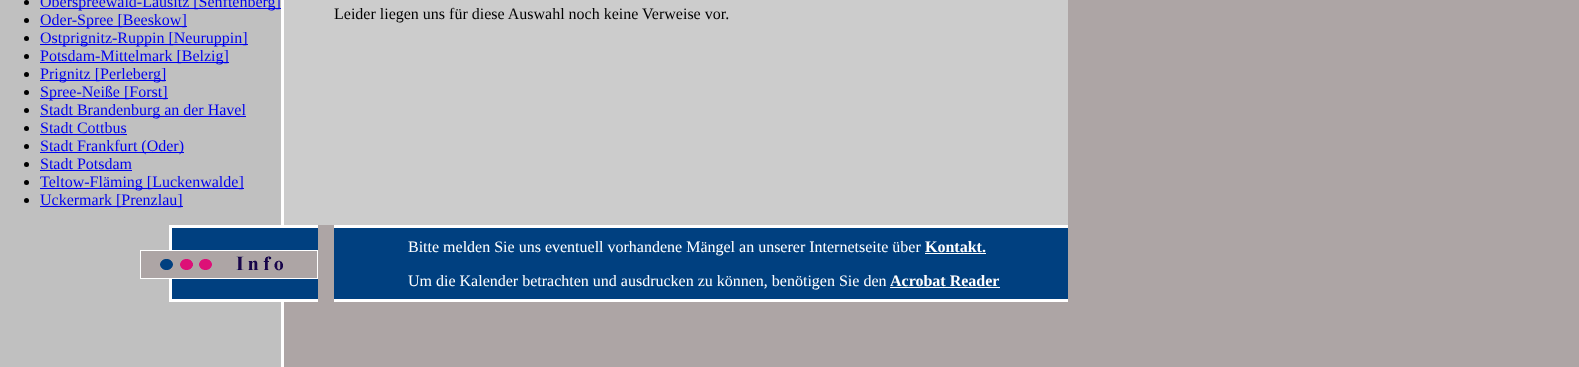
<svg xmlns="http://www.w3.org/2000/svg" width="1579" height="367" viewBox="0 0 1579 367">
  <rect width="100%" height="100%" fill="#ada5a5"/>
  <path d="M0 0h281v225H0z" fill="#c0c0c0"/>
  <circle cx="26.5" cy="2.5" r="2.5" fill="#000"/>
  <path d="M40 8h241v1H40z" fill="#00e"/>
  <circle cx="26.5" cy="20.5" r="2.5" fill="#000"/>
  <path d="M40 26h147v1H40z" fill="#00e"/>
  <circle cx="26.5" cy="38.5" r="2.5" fill="#000"/>
  <path d="M40 44h208v1H40z" fill="#00e"/>
  <circle cx="26.5" cy="56.5" r="2.5" fill="#000"/>
  <path d="M40 62h189v1H40z" fill="#00e"/>
  <circle cx="26.5" cy="74.5" r="2.5" fill="#000"/>
  <path d="M40 80h126v1H40z" fill="#00e"/>
  <circle cx="26.5" cy="92.5" r="2.5" fill="#000"/>
  <path d="M40 98h128v1H40z" fill="#00e"/>
  <circle cx="26.5" cy="110.5" r="2.5" fill="#000"/>
  <path d="M40 116h206v1H40z" fill="#00e"/>
  <circle cx="26.5" cy="128.5" r="2.5" fill="#000"/>
  <path d="M40 134h87v1H40z" fill="#00e"/>
  <circle cx="26.5" cy="146.5" r="2.5" fill="#000"/>
  <path d="M40 152h144v1H40z" fill="#00e"/>
  <circle cx="26.5" cy="164.5" r="2.5" fill="#000"/>
  <path d="M40 170h92v1H40z" fill="#00e"/>
  <circle cx="26.5" cy="182.5" r="2.5" fill="#000"/>
  <path d="M40 188h204v1H40z" fill="#00e"/>
  <circle cx="26.5" cy="200.5" r="2.5" fill="#000"/>
  <path d="M40 206h143v1H40z" fill="#00e"/>
  <path d="M284 0h784v225H284z" fill="#ccc"/>
  <path d="M281 0h3v225H281z" fill="#fff"/>
  <path d="M0 225h140v77H0z" fill="#c0c0c0"/>
  <image x="140" y="225" width="178" height="77" href="img/1.png"/>
  <path d="M334 225h734v3H334z" fill="#fff"/>
  <path d="M334 228h734v71H334z" fill="#004080"/>
  <path d="M925 253h61v1H925z" fill="#fff"/>
  <path d="M890 287h110v1H890z" fill="#fff"/>
  <path d="M334 299h734v3H334z" fill="#fff"/>
  <path d="M0 302h281v65H0z" fill="#c0c0c0"/>
  <path d="M281 302h3v65H281z" fill="#fff"/>
  <g font-family="Liberation Serif" font-size="16" fill="#00e">
    <text x="40" y="7">Oberspreewald-Lausitz [Senftenberg]</text>
    <text x="40" y="25">Oder-Spree [Beeskow]</text>
    <text x="40" y="43">Ostprignitz-Ruppin [Neuruppin]</text>
    <text x="40" y="61">Potsdam-Mittelmark [Belzig]</text>
    <text x="40" y="79">Prignitz [Perleberg]</text>
    <text x="40" y="97">Spree-Neiße [Forst]</text>
    <text x="40" y="115">Stadt Brandenburg an der Havel</text>
    <text x="40" y="133">Stadt Cottbus</text>
    <text x="40" y="151">Stadt Frankfurt (Oder)</text>
    <text x="40" y="169">Stadt Potsdam</text>
    <text x="40" y="187">Teltow-Fläming [Luckenwalde]</text>
    <text x="40" y="205">Uckermark [Prenzlau]</text>
  </g>
  <text x="334" y="19" font-family="Liberation Serif" font-size="16" fill="#000">Leider liegen uns für diese Auswahl noch keine Verweise vor.</text>
  <text x="408" y="252" font-family="Liberation Serif" font-size="16" fill="#fff">Bitte melden Sie uns eventuell vorhandene Mängel an unserer Internetseite über</text>
  <text x="925" y="252" font-family="Liberation Serif" font-size="16" font-weight="bold" fill="#fff">Kontakt.</text>
  <text x="408" y="286" font-family="Liberation Serif" font-size="16" fill="#fff">Um die Kalender betrachten und ausdrucken zu können, benötigen Sie den</text>
  <text x="890" y="286" font-family="Liberation Serif" font-size="16" font-weight="bold" fill="#fff">Acrobat Reader</text>
</svg>
